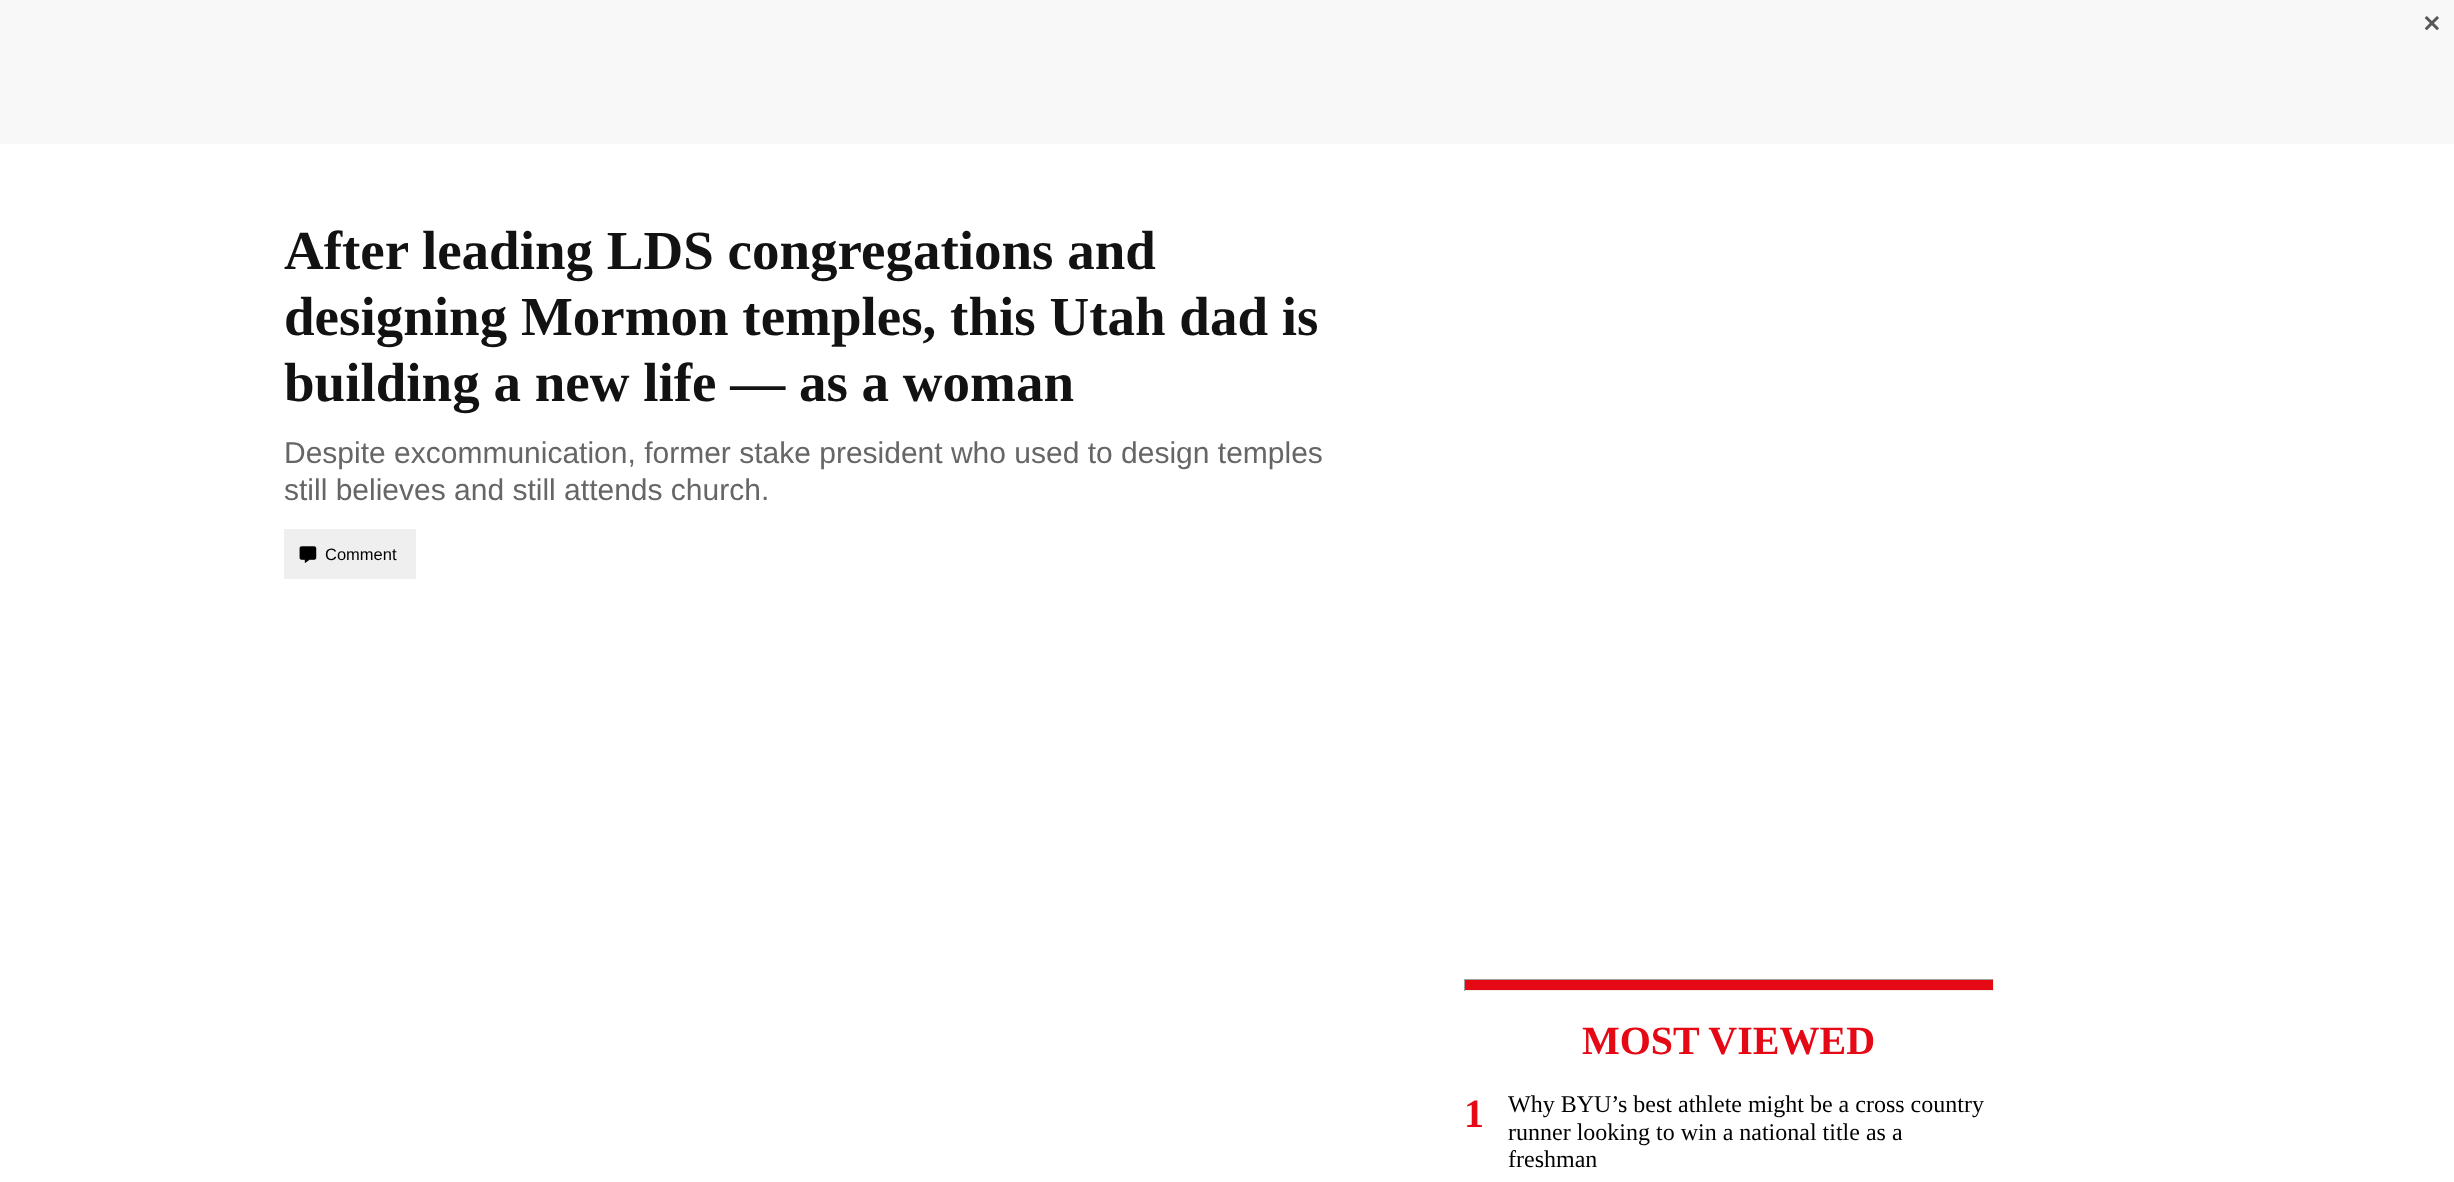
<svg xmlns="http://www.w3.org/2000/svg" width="2454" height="1182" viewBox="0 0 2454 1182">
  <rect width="100%" height="100%" fill="#fff"/>
  <path d="M0 0h2454v144H0z" fill="#f8f8f8"/>
  <image x="2424" y="16" width="15" height="15" href="img/1.png"/>
  <path d="M284 529h132v50H284z" fill="#efefef"/>
  <image x="299" y="546" width="18" height="17" href="img/2.png"/>
  <path d="M1465 980h528v10H1465z" fill="#e50815"/>
  <path d="M1464 979h530v1H1464z" fill="#9f9f9f"/>
  <path d="M1993 979h1v12H1993z" fill="#eee"/>
  <path d="M1464 990h530v1H1464z" fill="#eee"/>
  <path d="M1464 979h1v12H1464z" fill="#9f9f9f"/>
  <g font-family="Liberation Serif" font-size="55" font-weight="bold" fill="#121212">
    <text x="284" y="269">After leading LDS congregations and</text>
    <text x="284" y="335">designing Mormon temples, this Utah dad is</text>
    <text x="284" y="401">building a new life — as a woman</text>
  </g>
  <g font-family="Liberation Sans" font-size="30" fill="#666">
    <text x="284" y="463">Despite excommunication, former stake president who used to design temples</text>
    <text x="284" y="500">still believes and still attends church.</text>
  </g>
  <text x="325" y="560" font-family="Liberation Sans" font-size="16.5" fill="#000">Comment</text>
  <g font-family="Liberation Serif" font-size="40" font-weight="bold" fill="#e50815">
    <text x="1582" y="1054">MOST VIEWED</text>
    <text x="1464" y="1127">1</text>
  </g>
  <g font-family="Liberation Serif" font-size="24" fill="#000">
    <text x="1508" y="1112">Why BYU’s best athlete might be a cross country</text>
    <text x="1508" y="1140">runner looking to win a national title as a</text>
    <text x="1508" y="1167">freshman</text>
  </g>
</svg>
